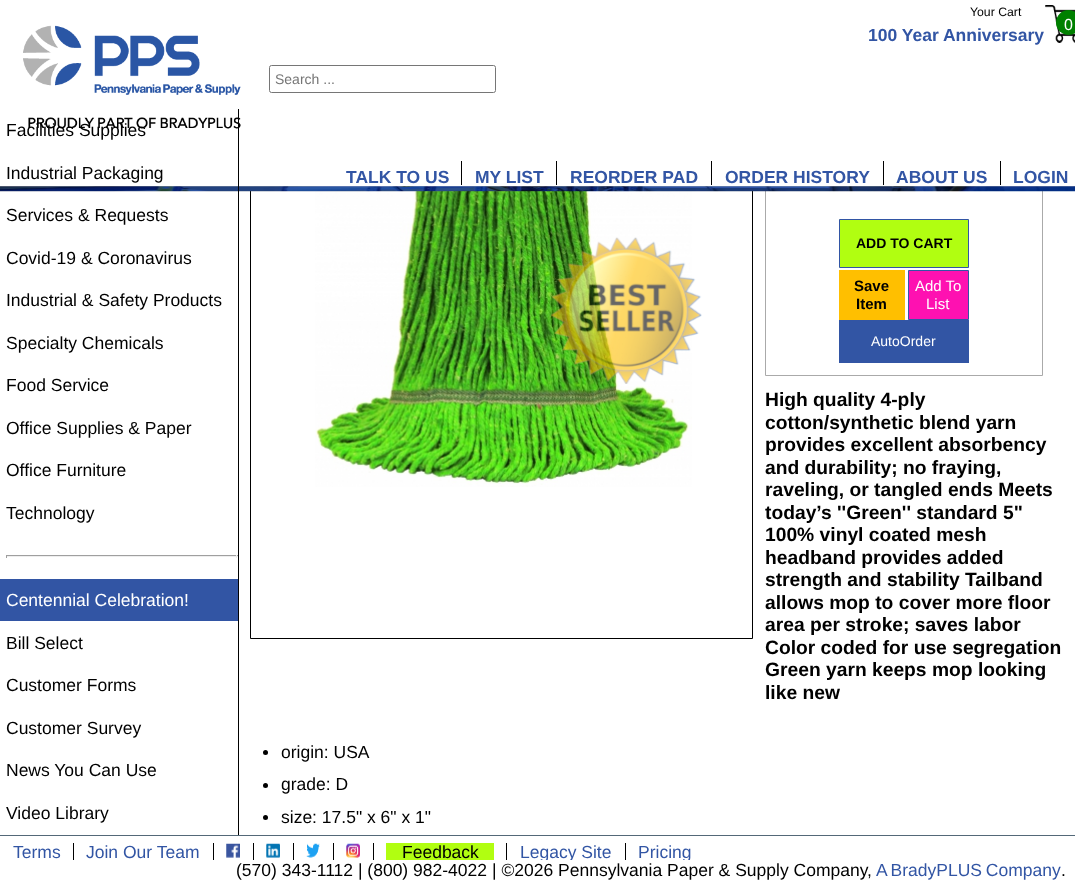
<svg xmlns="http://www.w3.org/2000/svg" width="1075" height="886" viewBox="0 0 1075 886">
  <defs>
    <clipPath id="clip1"><path d="M508 843h117v17H508z"/></clipPath>
    <clipPath id="clip2"><path d="M626 843h78v17H626z"/></clipPath>
  </defs>
  <rect width="100%" height="100%" fill="#fff"/>
  <path d="M250.5 74.5h502v564H250.5z" fill="none" stroke="#000"/>
  <path d="M765.5 74.5h277v301H765.5z" fill="none" stroke="#aaa"/>
  <path d="M250 74h793v113H250z" fill="#fff"/>
  <image x="315" y="191" width="377" height="296" href="img/4.png"/>
  <image x="0" y="186" width="1075" height="6" href="img/1.png"/>
  <image x="23" y="25" width="218" height="104" href="img/2.png"/>
  <image x="1045" y="5" width="30" height="38" href="img/3.png"/>
  <circle cx="1068.5" cy="22.5" r="12.5" fill="#008000"/>
  <rect x="269.5" y="65.5" width="226" height="27" rx="2" fill="none" stroke="#767676"/>
  <path d="M461 161h1v24H461z" fill="#000"/>
  <path d="M556 161h1v24H556z" fill="#000"/>
  <path d="M711 161h1v24H711z" fill="#000"/>
  <path d="M883 161h1v24H883z" fill="#000"/>
  <path d="M1000 161h1v24H1000z" fill="#000"/>
  <path d="M238 109h1v726H238z" fill="#000"/>
  <path d="M6 555h232v1H6z" fill="#9f9f9f"/>
  <path d="M236 555h1v3H236z" fill="#eee"/>
  <path d="M6 556h232v1H6z" fill="#eee"/>
  <path d="M6 555h1v3H6z" fill="#9f9f9f"/>
  <path d="M0 579h238v42H0z" fill="#3255a4"/>
  <image x="551" y="237" width="151" height="147" href="img/5.png"/>
  <path d="M839.5 219.5h129v48H839.5z" fill="#b1fe11" stroke="#3255a4"/>
  <path d="M839 270h66v50H839z" fill="#ffbf00"/>
  <path d="M908.5 270.5h60v49H908.5z" fill="#fe11b1" stroke="#3255a4"/>
  <path d="M839 320h130v43H839z" fill="#3255a4"/>
  <circle cx="265.5" cy="752.5" r="2.5" fill="#000"/>
  <circle cx="265.5" cy="785.5" r="2.5" fill="#000"/>
  <circle cx="265.5" cy="817.5" r="2.5" fill="#000"/>
  <path d="M0 835h1075v1H0z" fill="#536878"/>
  <path d="M73 843h1v17H73z" fill="#000"/>
  <path d="M213 843h1v17H213z" fill="#000"/>
  <image x="226" y="843" width="14" height="15" href="img/6.png"/>
  <path d="M253 843h1v17H253z" fill="#000"/>
  <image x="266" y="843" width="14" height="15" href="img/7.png"/>
  <path d="M293 843h1v17H293z" fill="#000"/>
  <image x="306" y="843" width="14" height="15" href="img/8.png"/>
  <path d="M333 843h1v17H333z" fill="#000"/>
  <image x="346" y="843" width="14" height="15" href="img/9.png"/>
  <path d="M373 843h1v17H373z" fill="#000"/>
  <path d="M386 843h108v17H386z" fill="#b1fe11"/>
  <path d="M506 843h1v17H506z" fill="#000"/>
  <path d="M625 843h1v17H625z" fill="#000"/>
  <text x="970" y="16" font-family="Liberation Sans" font-size="12.25" fill="#000">Your Cart</text>
  <text x="1064" y="30" font-family="Liberation Sans" font-size="16" fill="#fff">0</text>
  <text x="868" y="41" font-family="Liberation Sans" font-size="17.5" font-weight="bold" fill="#3255a4">100 Year Anniversary</text>
  <text x="275" y="84" font-family="Liberation Sans" font-size="14" fill="#757575">Search ...</text>
  <g font-family="Liberation Sans" font-size="17.5" font-weight="bold" fill="#3255a4">
    <text x="346" y="183">TALK TO US</text>
    <text x="475" y="183">MY LIST</text>
    <text x="570" y="183">REORDER PAD</text>
    <text x="725" y="183">ORDER HISTORY</text>
    <text x="896" y="183">ABOUT US</text>
    <text x="1013" y="183">LOGIN</text>
  </g>
  <g font-family="Liberation Sans" font-size="17.5" fill="#000">
    <text x="6" y="136">Facilities Supplies</text>
    <text x="6" y="179">Industrial Packaging</text>
    <text x="6" y="221">Services &amp; Requests</text>
    <text x="6" y="264">Covid-19 &amp; Coronavirus</text>
    <text x="6" y="306">Industrial &amp; Safety Products</text>
    <text x="6" y="349">Specialty Chemicals</text>
    <text x="6" y="391">Food Service</text>
    <text x="6" y="434">Office Supplies &amp; Paper</text>
    <text x="6" y="476">Office Furniture</text>
    <text x="6" y="519">Technology</text>
  </g>
  <text x="6" y="606" font-family="Liberation Sans" font-size="17.5" fill="#fff">Centennial Celebration!</text>
  <g font-family="Liberation Sans" font-size="17.5" fill="#000">
    <text x="6" y="649">Bill Select</text>
    <text x="6" y="691">Customer Forms</text>
    <text x="6" y="734">Customer Survey</text>
    <text x="6" y="776">News You Can Use</text>
    <text x="6" y="819">Video Library</text>
  </g>
  <text x="856" y="248" font-family="Liberation Sans" font-size="14" font-weight="bold" fill="#000">ADD TO CART</text>
  <g font-family="Liberation Sans" font-size="15" font-weight="bold" fill="#000">
    <text x="854" y="291">Save</text>
    <text x="856" y="309">Item</text>
  </g>
  <g font-family="Liberation Sans" font-size="15" fill="#fff">
    <text x="915" y="291">Add To</text>
    <text x="926" y="309">List</text>
  </g>
  <text x="871" y="346" font-family="Liberation Sans" font-size="14" fill="#fff">AutoOrder</text>
  <g font-family="Liberation Sans" font-size="19.25" font-weight="bold" fill="#000">
    <text x="765" y="406">High quality 4-ply</text>
    <text x="765" y="429">cotton/synthetic blend yarn</text>
    <text x="765" y="451">provides excellent absorbency</text>
    <text x="765" y="474">and durability; no fraying,</text>
    <text x="765" y="496">raveling, or tangled ends Meets</text>
    <text x="765" y="519">today’s ''Green'' standard 5"</text>
    <text x="765" y="541">100% vinyl coated mesh</text>
    <text x="765" y="564">headband provides added</text>
    <text x="765" y="586">strength and stability Tailband</text>
    <text x="765" y="609">allows mop to cover more floor</text>
    <text x="765" y="631">area per stroke; saves labor</text>
    <text x="765" y="654">Color coded for use segregation</text>
    <text x="765" y="676">Green yarn keeps mop looking</text>
    <text x="765" y="699">like new</text>
  </g>
  <g font-family="Liberation Sans" font-size="17.5" fill="#000">
    <text x="281" y="758">origin: USA</text>
    <text x="281" y="790">grade: D</text>
    <text x="281" y="823">size: 17.5" x 6" x 1"</text>
  </g>
  <g font-family="Liberation Sans" font-size="17.5" fill="#3255a4">
    <text x="13" y="858">Terms</text>
    <text x="86" y="858">Join Our Team</text>
  </g>
  <text x="402" y="858" font-family="Liberation Sans" font-size="17.5" fill="#000">Feedback</text>
  <g clip-path="url(#clip1)">
    <text x="520" y="858" font-family="Liberation Sans" font-size="17.5" fill="#3255a4">Legacy Site</text>
  </g>
  <g clip-path="url(#clip2)">
    <text x="638" y="858" font-family="Liberation Sans" font-size="17.5" fill="#3255a4">Pricing</text>
  </g>
  <g font-family="Liberation Sans" font-size="17.5" fill="#000">
    <text x="236" y="876">(570) 343-1112 | (800) 982-4022</text>
    <text x="492" y="876">| ©2026 Pennsylvania Paper &amp; Supply Company,</text>
  </g>
  <text x="876" y="876" word-spacing="-1" font-family="Liberation Sans" font-size="17.5" fill="#3255a4">A BradyPLUS Company</text>
  <text x="1061" y="876" font-family="Liberation Sans" font-size="17.5" fill="#000">.</text>
</svg>
